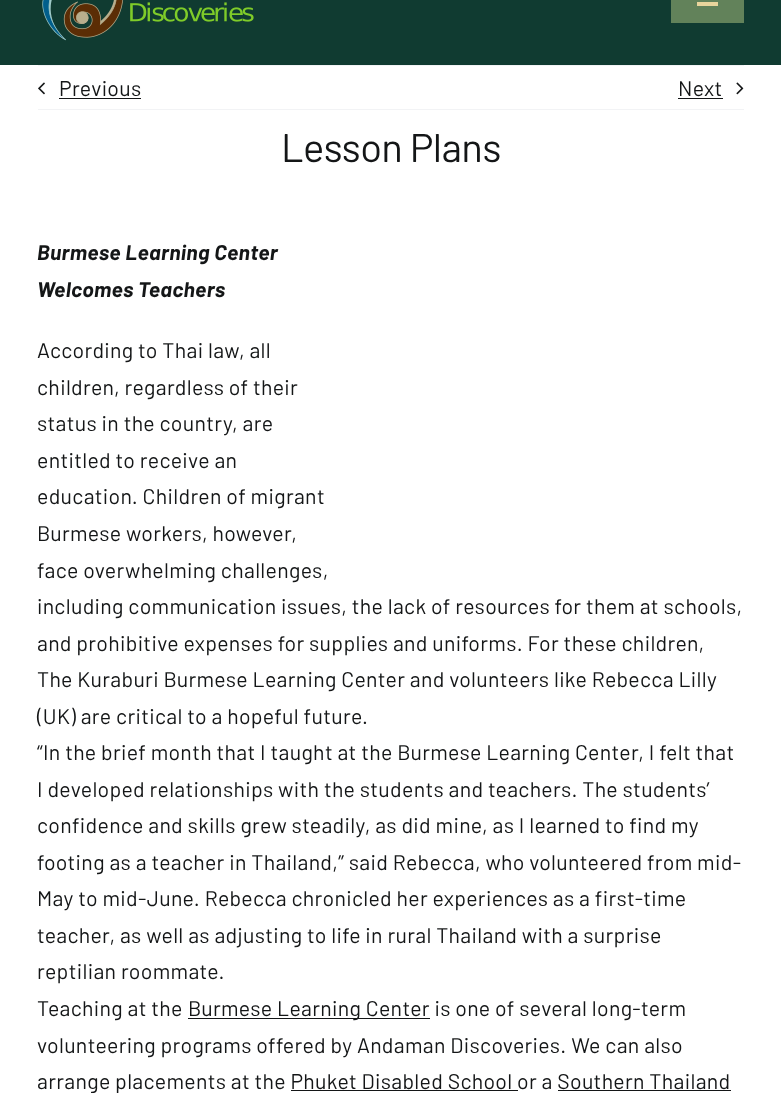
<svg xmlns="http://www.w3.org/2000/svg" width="781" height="1093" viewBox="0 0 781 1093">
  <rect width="100%" height="100%" fill="#fff"/>
  <path d="M0 0h781v65H0z" fill="#103b31"/>
  <image x="42" y="0" width="212" height="41" href="img/1.png"/>
  <path d="M671 0h73v23H671z" fill="#62825a"/>
  <path d="M697 2h21v4H697z" fill="#e9d59c"/>
  <path d="M38 65h706v1H38z" fill="#f2f3f5"/>
  <path d="M38 109h706v1H38z" fill="#f2f3f5"/>
  <image x="38" y="82" width="7" height="13" href="img/2.png"/>
  <path d="M59 98h82v1H59z" fill="#141617"/>
  <path d="M678 98h45v1H678z" fill="#141617"/>
  <image x="736" y="82" width="8" height="13" href="img/3.png"/>
  <path d="M188 1018h242v1H188z" fill="#141617"/>
  <path d="M291 1090h227v1H291z" fill="#141617"/>
  <path d="M558 1090h173v1H558z" fill="#141617"/>
  <g font-family="Barlow" font-size="21.25" letter-spacing="0.32" fill="#141617">
    <text x="59" y="96">Previous</text>
    <text x="678" y="96">Next</text>
  </g>
  <text x="281" y="162" font-family="Barlow" font-size="40" letter-spacing="-0.6" fill="#141617">Lesson Plans</text>
  <g font-family="Barlow" font-size="21.25" font-weight="bold" font-style="italic" letter-spacing="0.32" fill="#141617">
    <text x="37" y="260">Burmese Learning Center</text>
    <text x="37" y="297">Welcomes Teachers</text>
  </g>
  <g font-family="Barlow" font-size="21.25" letter-spacing="0.32" fill="#141617">
    <text x="37" y="358">According to Thai law, all</text>
    <text x="37" y="395">children, regardless of their</text>
    <text x="37" y="431">status in the country, are</text>
    <text x="37" y="468">entitled to receive an</text>
    <text x="37" y="504">education. Children of migrant</text>
    <text x="37" y="541">Burmese workers, however,</text>
    <text x="37" y="578">face overwhelming challenges,</text>
    <text x="37" y="614">including communication issues, the lack of resources for them at schools,</text>
    <text x="37" y="651">and prohibitive expenses for supplies and uniforms. For these children,</text>
    <text x="37" y="687">The Kuraburi Burmese Learning Center and volunteers like Rebecca Lilly</text>
    <text x="37" y="724">(UK) are critical to a hopeful future.</text>
    <text x="37" y="760">“In the brief month that I taught at the Burmese Learning Center, I felt that</text>
    <text x="37" y="797">I developed relationships with the students and teachers. The students’</text>
    <text x="37" y="833">confidence and skills grew steadily, as did mine, as I learned to find my</text>
    <text x="37" y="870">footing as a teacher in Thailand,” said Rebecca, who volunteered from mid-</text>
    <text x="37" y="906">May to mid-June. Rebecca chronicled her experiences as a first-time</text>
    <text x="37" y="943">teacher, as well as adjusting to life in rural Thailand with a surprise</text>
    <text x="37" y="979">reptilian roommate.</text>
    <text x="37" y="1016">Teaching at the</text>
    <text x="188" y="1016">Burmese Learning Center is one of several long-term</text>
    <text x="37" y="1053">volunteering programs offered by Andaman Discoveries. We can also</text>
    <text x="37" y="1089">arrange placements at the Phuket Disabled School or a Southern Thailand</text>
  </g>
</svg>
